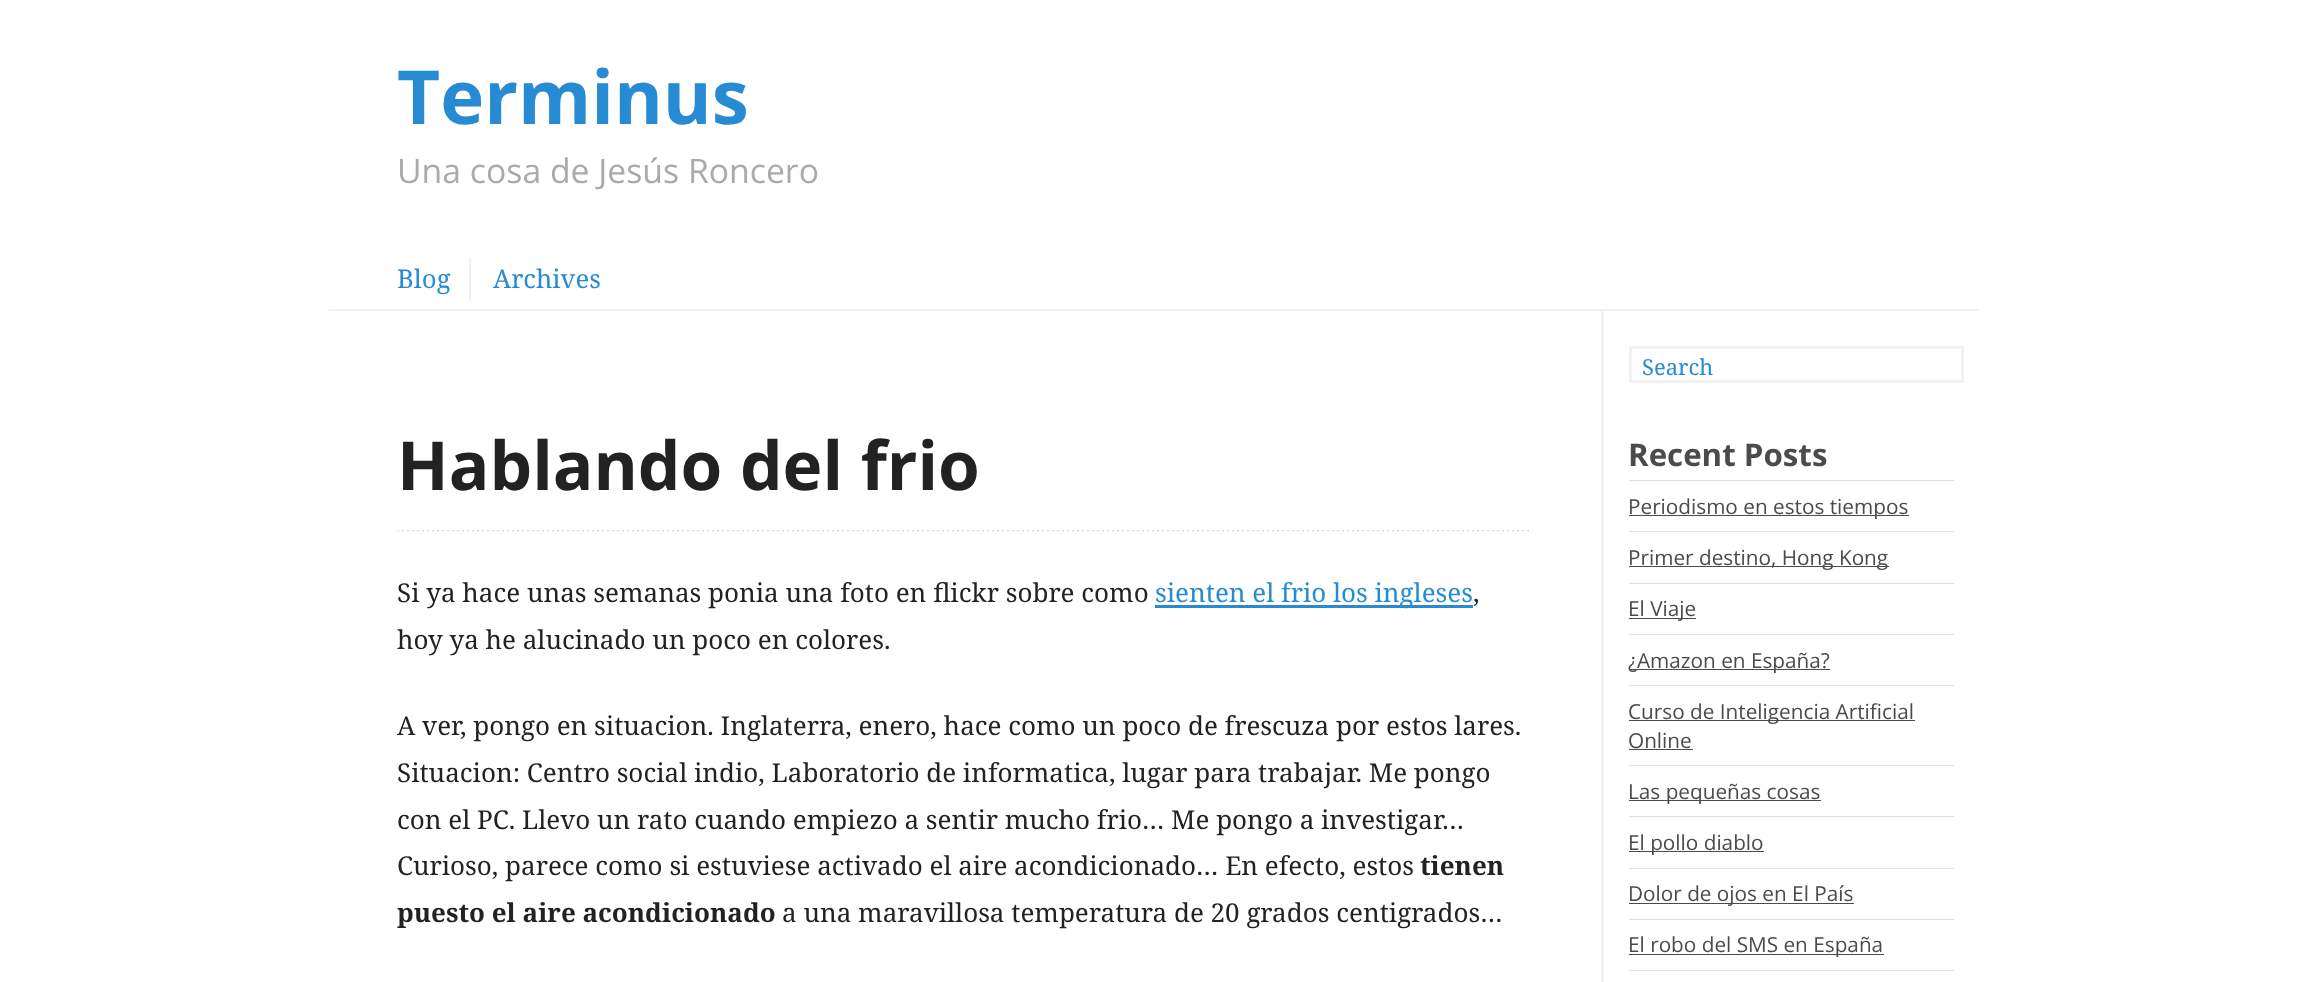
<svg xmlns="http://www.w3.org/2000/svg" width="2306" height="982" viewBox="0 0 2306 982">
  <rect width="100%" height="100%" fill="#fff"/>
  <path d="M329 309h1650v2H329z" fill="#f2f2f2"/>
  <path d="M469 258h2v43H469z" fill="#f2f2f2"/>
  <image x="397" y="530" width="1136" height="2" href="img/1.png"/>
  <path d="M1155 605h318v3H1155z" fill="#268bd2"/>
  <path d="M1601 311h3v671H1601z" fill="#f2f2f2"/>
  <path d="M1630.5 347.5h332v34H1630.5z" fill="none" stroke="#f2f2f2" stroke-width="3"/>
  <path d="M1629 480h325v1H1629z" fill="#e0e0e0"/>
  <path d="M1629 531h325v1H1629z" fill="#e0e0e0"/>
  <path d="M1629 515h280v1H1629z" fill="#4b4b4b"/>
  <path d="M1629 583h325v1H1629z" fill="#e0e0e0"/>
  <path d="M1629 566h260v1H1629z" fill="#4b4b4b"/>
  <path d="M1629 634h325v1H1629z" fill="#e0e0e0"/>
  <path d="M1629 618h67v1H1629z" fill="#4b4b4b"/>
  <path d="M1629 685h325v1H1629z" fill="#e0e0e0"/>
  <path d="M1629 669h201v1H1629z" fill="#4b4b4b"/>
  <path d="M1629 765h325v1H1629z" fill="#e0e0e0"/>
  <path d="M1629 720h286v1H1629z" fill="#4b4b4b"/>
  <path d="M1629 749h64v1H1629z" fill="#4b4b4b"/>
  <path d="M1629 816h325v1H1629z" fill="#e0e0e0"/>
  <path d="M1629 800h192v1H1629z" fill="#4b4b4b"/>
  <path d="M1629 868h325v1H1629z" fill="#e0e0e0"/>
  <path d="M1629 851h135v1H1629z" fill="#4b4b4b"/>
  <path d="M1629 919h325v1H1629z" fill="#e0e0e0"/>
  <path d="M1629 903h225v1H1629z" fill="#4b4b4b"/>
  <path d="M1629 970h325v1H1629z" fill="#e0e0e0"/>
  <path d="M1629 954h255v1H1629z" fill="#4b4b4b"/>
  <text x="397" y="124" font-family="Open Sans" font-size="74.5" font-weight="bold" fill="#268bd2">Terminus</text>
  <text x="397" y="183" font-family="Open Sans" font-size="33.75" fill="#aaa">Una cosa de Jesús Roncero</text>
  <g font-family="Noto Serif" font-size="25.75" fill="#268bd2">
    <text x="397" y="288">Blog</text>
    <text x="493" y="288">Archives</text>
  </g>
  <text x="397" y="490" font-family="Open Sans" font-size="67.5" font-weight="bold" fill="#222">Hablando del frio</text>
  <text x="397" y="602" font-family="Noto Serif" font-size="26" fill="#222">Si ya hace unas semanas ponia una foto en flickr sobre como</text>
  <text x="1155" y="602" font-family="Noto Serif" font-size="26" fill="#268bd2">sienten el frio los ingleses</text>
  <g font-family="Noto Serif" font-size="26" fill="#222">
    <text x="1473" y="602">,</text>
    <text x="397" y="649">hoy ya he alucinado un poco en colores.</text>
    <text x="397" y="735">A ver, pongo en situacion. Inglaterra, enero, hace como un poco de frescuza por estos lares.</text>
    <text x="397" y="782">Situacion: Centro social indio, Laboratorio de informatica, lugar para trabajar. Me pongo</text>
    <text x="397" y="829">con el PC. Llevo un rato cuando empiezo a sentir mucho frio… Me pongo a investigar…</text>
    <text x="397" y="875">Curioso, parece como si estuviese activado el aire acondicionado… En efecto, estos</text>
  </g>
  <g font-family="Noto Serif" font-size="26" font-weight="bold" fill="#222">
    <text x="1420" y="875">tienen</text>
    <text x="397" y="922">puesto el aire acondicionado</text>
  </g>
  <text x="782" y="922" font-family="Noto Serif" font-size="26" fill="#222">a una maravillosa temperatura de 20 grados centigrados…</text>
  <text x="1642" y="375" font-family="Noto Serif" font-size="22" fill="#268bd2">Search</text>
  <text x="1628" y="466" font-family="Open Sans" font-size="31.25" font-weight="bold" fill="#4b4b4b">Recent Posts</text>
  <g font-family="Open Sans" font-size="20.75" fill="#4b4b4b">
    <text x="1628" y="514">Periodismo en estos tiempos</text>
    <text x="1628" y="565">Primer destino, Hong Kong</text>
    <text x="1628" y="616">El Viaje</text>
    <text x="1628" y="668">¿Amazon en España?</text>
    <text x="1628" y="719">Curso de Inteligencia Artificial</text>
    <text x="1628" y="748">Online</text>
    <text x="1628" y="799">Las pequeñas cosas</text>
    <text x="1628" y="850">El pollo diablo</text>
    <text x="1628" y="901">Dolor de ojos en El País</text>
    <text x="1628" y="952">El robo del SMS en España</text>
  </g>
</svg>
